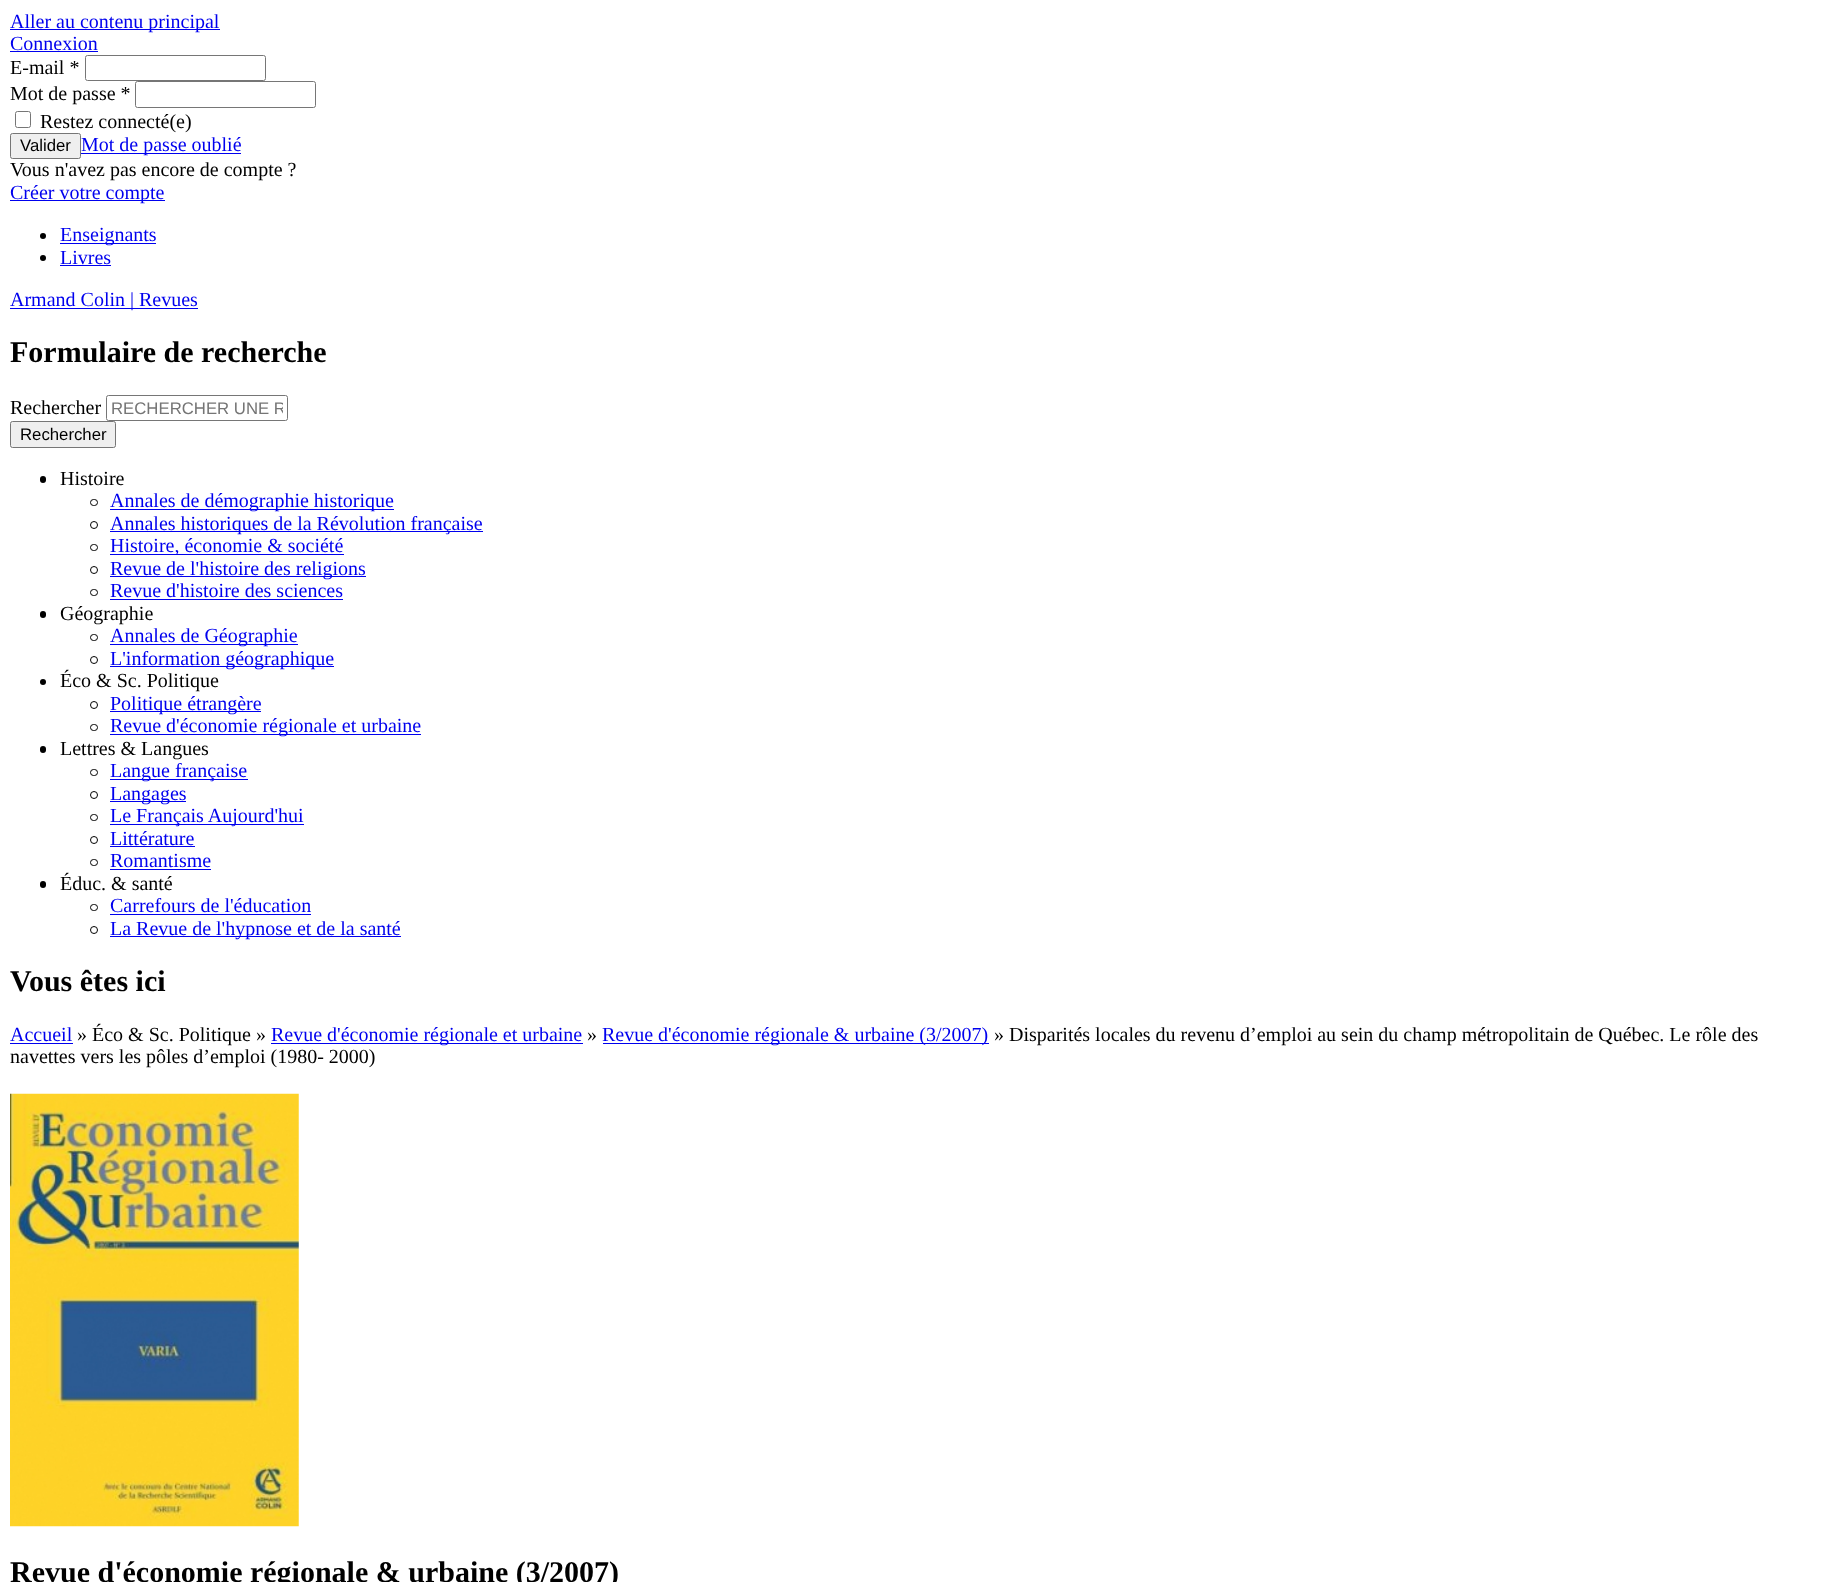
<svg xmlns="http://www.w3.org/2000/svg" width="1825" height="1582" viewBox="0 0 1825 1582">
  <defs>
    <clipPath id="clip1"><path d="M111 399h172v19H111z"/></clipPath>
  </defs>
  <rect width="100%" height="100%" fill="#fff"/>
  <path d="M10 29h210v1H10z" fill="#00e"/>
  <path d="M10 51h88v1H10z" fill="#00e"/>
  <rect x="85.5" y="55.5" width="180" height="25" rx="2" fill="none" stroke="#767676"/>
  <rect x="135.5" y="81.5" width="180" height="26" rx="2" fill="none" stroke="#767676"/>
  <rect x="15.5" y="111.5" width="15" height="16" rx="2" fill="none" stroke="#767676"/>
  <rect x="10.5" y="133.5" width="70" height="25" rx="2" fill="#efefef" stroke="#767676"/>
  <path d="M81 153h160v1H81z" fill="#00e"/>
  <path d="M10 200h155v1H10z" fill="#00e"/>
  <circle cx="43" cy="236" r="3" fill="#000"/>
  <path d="M60 243h96v1H60z" fill="#00e"/>
  <circle cx="43" cy="258" r="3" fill="#000"/>
  <path d="M60 265h51v1H60z" fill="#00e"/>
  <path d="M10 308h188v1H10z" fill="#00e"/>
  <rect x="106.5" y="395.5" width="181" height="25" rx="2" fill="none" stroke="#767676"/>
  <rect x="10.5" y="421.5" width="105" height="26" rx="2" fill="#efefef" stroke="#767676"/>
  <rect x="40" y="476" width="6" height="7" rx="3" fill="#000"/>
  <rect x="90.5" y="499.5" width="7" height="6" rx="3" fill="none" stroke="#000"/>
  <path d="M110 509h284v1H110z" fill="#00e"/>
  <circle cx="94" cy="525" r="3.5" fill="none" stroke="#000"/>
  <path d="M110 531h373v1H110z" fill="#00e"/>
  <rect x="90.5" y="544.5" width="7" height="6" rx="3" fill="none" stroke="#000"/>
  <path d="M110 554h234v1H110z" fill="#00e"/>
  <circle cx="94" cy="570" r="3.5" fill="none" stroke="#000"/>
  <path d="M110 576h256v1H110z" fill="#00e"/>
  <rect x="90.5" y="589.5" width="7" height="6" rx="3" fill="none" stroke="#000"/>
  <path d="M110 599h233v1H110z" fill="#00e"/>
  <rect x="40" y="611" width="6" height="7" rx="3" fill="#000"/>
  <rect x="90.5" y="634.5" width="7" height="6" rx="3" fill="none" stroke="#000"/>
  <path d="M110 644h188v1H110z" fill="#00e"/>
  <circle cx="94" cy="660" r="3.5" fill="none" stroke="#000"/>
  <path d="M110 666h224v1H110z" fill="#00e"/>
  <circle cx="43" cy="682" r="3" fill="#000"/>
  <circle cx="94" cy="705" r="3.5" fill="none" stroke="#000"/>
  <path d="M110 711h151v1H110z" fill="#00e"/>
  <rect x="90.5" y="724.5" width="7" height="6" rx="3" fill="none" stroke="#000"/>
  <path d="M110 734h311v1H110z" fill="#00e"/>
  <rect x="40" y="746" width="6" height="7" rx="3" fill="#000"/>
  <rect x="90.5" y="769.5" width="7" height="6" rx="3" fill="none" stroke="#000"/>
  <path d="M110 779h138v1H110z" fill="#00e"/>
  <circle cx="94" cy="795" r="3.5" fill="none" stroke="#000"/>
  <path d="M110 801h76v1H110z" fill="#00e"/>
  <rect x="90.5" y="814.5" width="7" height="6" rx="3" fill="none" stroke="#000"/>
  <path d="M110 824h194v1H110z" fill="#00e"/>
  <circle cx="94" cy="840" r="3.5" fill="none" stroke="#000"/>
  <path d="M110 846h85v1H110z" fill="#00e"/>
  <rect x="90.5" y="859.5" width="7" height="6" rx="3" fill="none" stroke="#000"/>
  <path d="M110 869h101v1H110z" fill="#00e"/>
  <rect x="40" y="881" width="6" height="7" rx="3" fill="#000"/>
  <rect x="90.5" y="904.5" width="7" height="6" rx="3" fill="none" stroke="#000"/>
  <path d="M110 914h201v1H110z" fill="#00e"/>
  <circle cx="94" cy="930" r="3.5" fill="none" stroke="#000"/>
  <path d="M110 936h291v1H110z" fill="#00e"/>
  <path d="M10 1043h63v1H10z" fill="#00e"/>
  <path d="M271 1043h312v1H271z" fill="#00e"/>
  <path d="M603 1043h386v1H603z" fill="#00e"/>
  <image x="10" y="1093" width="289" height="434" href="img/1.png"/>
  <g font-family="Liberation Serif" font-size="20" fill="#00e">
    <text x="10" y="28">Aller au contenu principal</text>
    <text x="10" y="50">Connexion</text>
  </g>
  <g font-family="Liberation Serif" font-size="20" fill="#000">
    <text x="10" y="74">E-mail *</text>
    <text x="10" y="100">Mot de passe *</text>
    <text x="40" y="128">Restez connecté(e)</text>
  </g>
  <text x="20" y="151" font-family="Liberation Sans" font-size="16.75" fill="#000">Valider</text>
  <text x="81" y="151" font-family="Liberation Serif" font-size="20" fill="#00e">Mot de passe oublié</text>
  <text x="10" y="176" font-family="Liberation Serif" font-size="20" fill="#000">Vous n'avez pas encore de compte ?</text>
  <g font-family="Liberation Serif" font-size="20" fill="#00e">
    <text x="10" y="199">Créer votre compte</text>
    <text x="60" y="241">Enseignants</text>
    <text x="60" y="264">Livres</text>
    <text x="10" y="306">Armand Colin | Revues</text>
  </g>
  <text x="10" y="362" font-family="Liberation Serif" font-size="30" font-weight="bold" fill="#000">Formulaire de recherche</text>
  <text x="10" y="414" font-family="Liberation Serif" font-size="20" fill="#000">Rechercher</text>
  <g clip-path="url(#clip1)">
    <text x="111" y="414" font-family="Liberation Sans" font-size="16.75" fill="#757575">RECHERCHER UNE R</text>
  </g>
  <text x="20" y="440" font-family="Liberation Sans" font-size="16.75" fill="#000">Rechercher</text>
  <text x="60" y="485" font-family="Liberation Serif" font-size="20" fill="#000">Histoire</text>
  <g font-family="Liberation Serif" font-size="20" fill="#00e">
    <text x="110" y="507">Annales de démographie historique</text>
    <text x="110" y="530">Annales historiques de la Révolution française</text>
    <text x="110" y="552">Histoire, économie &amp; société</text>
    <text x="110" y="575">Revue de l'histoire des religions</text>
    <text x="110" y="597">Revue d'histoire des sciences</text>
  </g>
  <text x="60" y="620" font-family="Liberation Serif" font-size="20" fill="#000">Géographie</text>
  <g font-family="Liberation Serif" font-size="20" fill="#00e">
    <text x="110" y="642">Annales de Géographie</text>
    <text x="110" y="665">L'information géographique</text>
  </g>
  <text x="60" y="687" font-family="Liberation Serif" font-size="20" fill="#000">Éco &amp; Sc. Politique</text>
  <g font-family="Liberation Serif" font-size="20" fill="#00e">
    <text x="110" y="710">Politique étrangère</text>
    <text x="110" y="732">Revue d'économie régionale et urbaine</text>
  </g>
  <text x="60" y="755" font-family="Liberation Serif" font-size="20" fill="#000">Lettres &amp; Langues</text>
  <g font-family="Liberation Serif" font-size="20" fill="#00e">
    <text x="110" y="777">Langue française</text>
    <text x="110" y="800">Langages</text>
    <text x="110" y="822">Le Français Aujourd'hui</text>
    <text x="110" y="845">Littérature</text>
    <text x="110" y="867">Romantisme</text>
  </g>
  <text x="60" y="890" font-family="Liberation Serif" font-size="20" fill="#000">Éduc. &amp; santé</text>
  <g font-family="Liberation Serif" font-size="20" fill="#00e">
    <text x="110" y="912">Carrefours de l'éducation</text>
    <text x="110" y="935">La Revue de l'hypnose et de la santé</text>
  </g>
  <text x="10" y="991" font-family="Liberation Serif" font-size="30" font-weight="bold" fill="#000">Vous êtes ici</text>
  <text x="10" y="1041" font-family="Liberation Serif" font-size="20" fill="#00e">Accueil</text>
  <text x="77" y="1041" font-family="Liberation Serif" font-size="20" fill="#000">» Éco &amp; Sc. Politique »</text>
  <text x="271" y="1041" font-family="Liberation Serif" font-size="20" fill="#00e">Revue d'économie régionale et urbaine</text>
  <text x="587" y="1041" font-family="Liberation Serif" font-size="20" fill="#000">»</text>
  <text x="602" y="1041" font-family="Liberation Serif" font-size="20" fill="#00e">Revue d'économie régionale &amp; urbaine (3/2007)</text>
  <g font-family="Liberation Serif" font-size="20" fill="#000">
    <text x="994" y="1041">» Disparités locales du revenu d’emploi au sein du champ métropolitain de Québec. Le rôle des</text>
    <text x="10" y="1063">navettes vers les pôles d’emploi (1980- 2000)</text>
  </g>
  <text x="10" y="1582" font-family="Liberation Serif" font-size="30" font-weight="bold" fill="#000">Revue d'économie régionale &amp; urbaine (3/2007)</text>
</svg>
